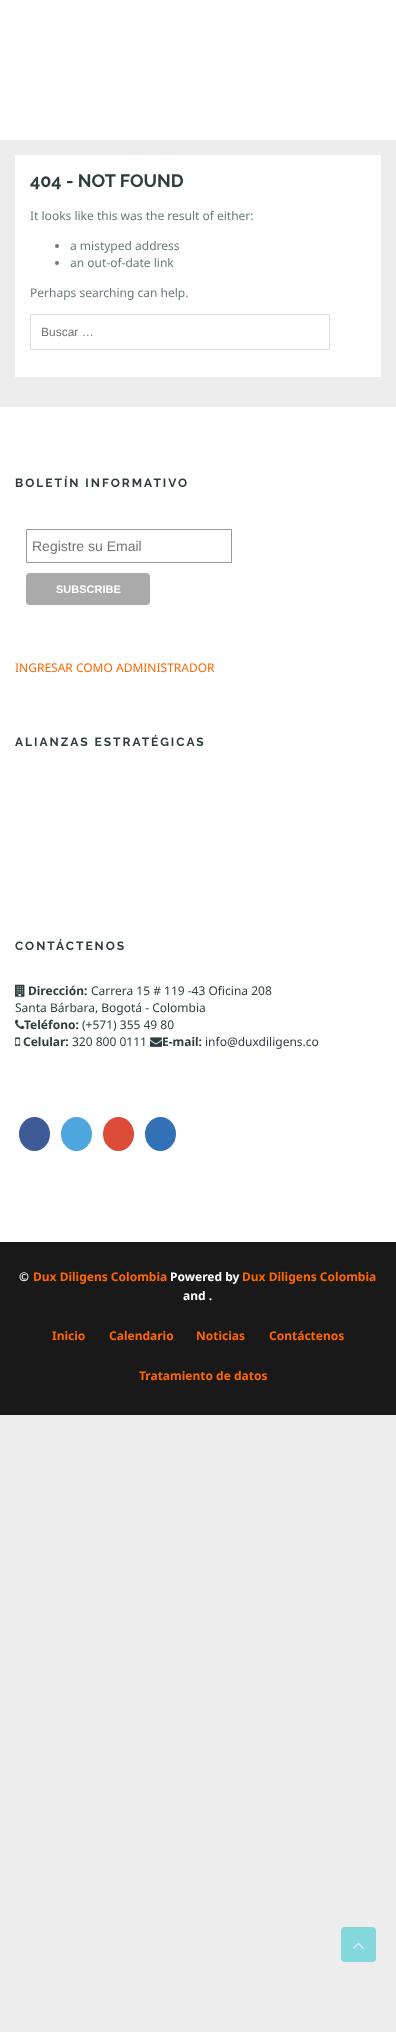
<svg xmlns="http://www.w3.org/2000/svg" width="396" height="2032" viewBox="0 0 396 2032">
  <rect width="100%" height="100%" fill="#ededed"/>
  <path d="M0 0h396v140H0z" fill="#fff"/>
  <path d="M15 155h366v222H15z" fill="#fff"/>
  <circle cx="57" cy="246" r="2" fill="#6a7a7c"/>
  <circle cx="57" cy="263" r="2" fill="#6a7a7c"/>
  <path d="M30.5 314.5h299v35H30.5z" fill="none" stroke="#ddd"/>
  <path d="M0 407h396v835H0z" fill="#fff"/>
  <path d="M26.5 529.5h205v33H26.5z" fill="none" stroke="#999"/>
  <rect x="26" y="573" width="124" height="32" rx="4" fill="#aaa"/>
  <image x="15" y="984" width="10" height="13" href="img/1.png"/>
  <image x="15" y="1019" width="10" height="10" href="img/2.png"/>
  <image x="15" y="1037" width="6" height="9" href="img/3.png"/>
  <image x="150" y="1037" width="12" height="10" href="img/4.png"/>
  <ellipse cx="34.5" cy="1134" rx="15.5" ry="17" fill="#3e5b98"/>
  <ellipse cx="76.5" cy="1134" rx="15.5" ry="17" fill="#4da7de"/>
  <ellipse cx="118.5" cy="1134" rx="15.5" ry="17" fill="#dd4b39"/>
  <ellipse cx="160.5" cy="1134" rx="15.5" ry="17" fill="#3371b7"/>
  <path d="M0 1242h396v173H0z" fill="#191919"/>
  <rect x="341" y="1927" width="35" height="35" rx="4" fill="#84d7da"/>
  <image x="353" y="1942" width="11" height="7" href="img/5.png"/>
  <text x="30" y="187" font-family="Raleway" font-size="18" font-weight="bold" fill="#2e3e40">404 - NOT FOUND</text>
  <g font-family="Noto Sans" font-size="12" fill="#6a7a7c">
    <text x="30" y="220">It looks like this was the result of either:</text>
    <text x="70" y="250">a mistyped address</text>
    <text x="70" y="267">an out-of-date link</text>
    <text x="30" y="297">Perhaps searching can help.</text>
  </g>
  <text x="41" y="336" font-family="Liberation Sans" font-size="12" fill="#757575">Buscar …</text>
  <text x="15" y="487" font-family="Raleway" font-size="12" font-weight="bold" letter-spacing="2" fill="#2e3e40">BOLETÍN INFORMATIVO</text>
  <text x="32" y="551" font-family="Liberation Sans" font-size="14" fill="#757575">Registre su Email</text>
  <text x="56" y="593" font-family="Liberation Sans" font-size="11" font-weight="bold" fill="#fff">SUBSCRIBE</text>
  <text x="15" y="672" font-family="Noto Sans" font-size="12" fill="#f60">INGRESAR COMO ADMINISTRADOR</text>
  <g font-family="Raleway" font-size="12" font-weight="bold" letter-spacing="2" fill="#2e3e40">
    <text x="15" y="746">ALIANZAS ESTRATÉGICAS</text>
    <text x="15" y="950">CONTÁCTENOS</text>
  </g>
  <text x="28" y="995" font-family="Noto Sans" font-size="12" font-weight="bold" fill="#2e3e40">Dirección:</text>
  <g font-family="Noto Sans" font-size="12" fill="#2e3e40">
    <text x="91" y="995">Carrera 15 # 119 -43 Oficina 208</text>
    <text x="15" y="1012">Santa Bárbara, Bogotá - Colombia</text>
  </g>
  <text x="24" y="1029" font-family="Noto Sans" font-size="12" font-weight="bold" fill="#2e3e40">Teléfono:</text>
  <text x="82" y="1029" font-family="Noto Sans" font-size="12" fill="#2e3e40">(+571) 355 49 80</text>
  <text x="23" y="1046" font-family="Noto Sans" font-size="12" font-weight="bold" fill="#2e3e40">Celular:</text>
  <text x="72" y="1046" font-family="Noto Sans" font-size="12" fill="#2e3e40">320 800 0111</text>
  <text x="162" y="1046" font-family="Noto Sans" font-size="12" font-weight="bold" fill="#2e3e40">E-mail:</text>
  <text x="205" y="1046" font-family="Noto Sans" font-size="12" fill="#2e3e40">info@duxdiligens.co</text>
  <text x="19" y="1281" font-family="Noto Sans" font-size="12" font-weight="bold" fill="#fff">©</text>
  <text x="33" y="1281" font-family="Noto Sans" font-size="12" font-weight="bold" fill="#f60">Dux Diligens Colombia</text>
  <text x="170" y="1281" font-family="Noto Sans" font-size="12" font-weight="bold" fill="#fff">Powered by</text>
  <text x="242" y="1281" font-family="Noto Sans" font-size="12" font-weight="bold" fill="#f60">Dux Diligens Colombia</text>
  <text x="183" y="1300" font-family="Noto Sans" font-size="12" font-weight="bold" fill="#fff">and .</text>
  <g font-family="Noto Sans" font-size="12" font-weight="bold" fill="#f60">
    <text x="52" y="1340">Inicio</text>
    <text x="109" y="1340">Calendario</text>
    <text x="196" y="1340">Noticias</text>
    <text x="269" y="1340">Contáctenos</text>
    <text x="139" y="1380">Tratamiento de datos</text>
  </g>
</svg>
